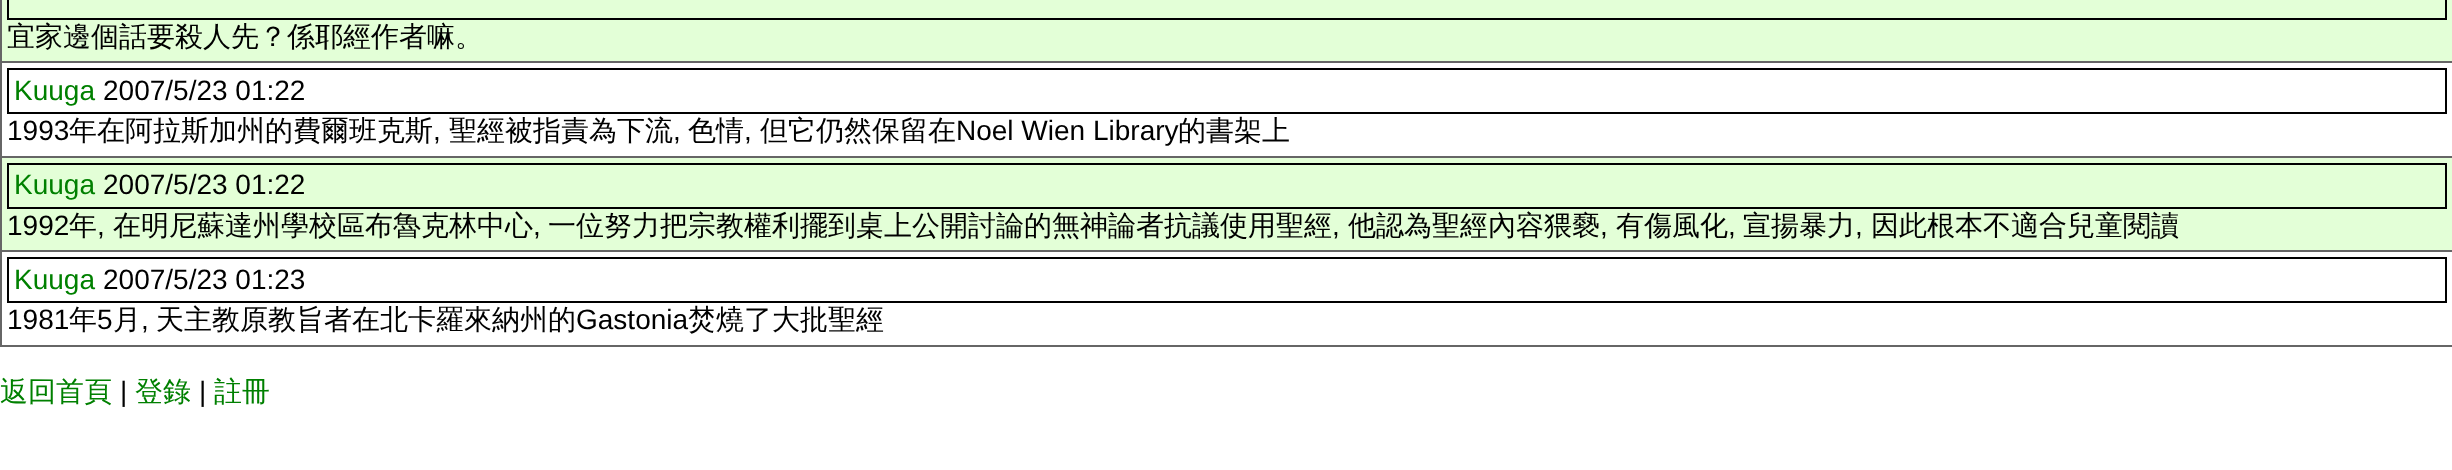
<svg xmlns="http://www.w3.org/2000/svg" width="2452" height="470" viewBox="0 0 2452 470">
  <rect width="100%" height="100%" fill="#fff"/>
  <path d="M2 0h2450v61H2z" fill="#e3ffd7"/>
  <path d="M2445 0h2v19H2445z" fill="#000"/>
  <path d="M7 18h2440v2H7z" fill="#000"/>
  <path d="M7 0h2v19H7z" fill="#000"/>
  <path d="M0 61h2452v2H0z" fill="#666"/>
  <path d="M0 156h2452v2H0z" fill="#666"/>
  <path d="M0 250h2452v2H0z" fill="#666"/>
  <path d="M0 345h2452v2H0z" fill="#666"/>
  <path d="M0 250h2v97H0z" fill="#666"/>
  <path d="M0 156h2v96H0z" fill="#666"/>
  <path d="M0 0h2v158H0z" fill="#666"/>
  <path d="M7 68h2440v2H7z" fill="#000"/>
  <path d="M2445 68h2v46H2445z" fill="#000"/>
  <path d="M7 112h2440v2H7z" fill="#000"/>
  <path d="M7 68h2v46H7z" fill="#000"/>
  <path d="M2 158h2450v92H2z" fill="#e3ffd7"/>
  <path d="M7 163h2440v2H7z" fill="#000"/>
  <path d="M2445 163h2v45H2445z" fill="#000"/>
  <path d="M7 207h2440v2H7z" fill="#000"/>
  <path d="M7 163h2v45H7z" fill="#000"/>
  <path d="M7 257h2440v2H7z" fill="#000"/>
  <path d="M2445 257h2v46H2445z" fill="#000"/>
  <path d="M7 301h2440v2H7z" fill="#000"/>
  <path d="M7 257h2v46H7z" fill="#000"/>
  <text x="7" y="46" font-family="WenQuanYi Zen Hei" font-size="28" font-weight="500" fill="#000">宜家邊個話要殺人先？係耶經作者嘛。</text>
  <text x="14" y="100" font-family="Liberation Sans" font-size="28" fill="#008000">Kuuga</text>
  <g font-family="Liberation Sans" font-size="28" fill="#000">
    <text x="103" y="100">2007/5/23 01:22</text>
    <text x="7" y="140">1993</text>
  </g>
  <text x="69" y="140" font-family="WenQuanYi Zen Hei" font-size="28" font-weight="500" fill="#000">年在阿拉斯加州的費爾班克斯</text>
  <text x="433" y="140" font-family="Liberation Sans" font-size="28" fill="#000">,</text>
  <text x="449" y="140" font-family="WenQuanYi Zen Hei" font-size="28" font-weight="500" fill="#000">聖經被指責為下流</text>
  <text x="673" y="140" font-family="Liberation Sans" font-size="28" fill="#000">,</text>
  <text x="688" y="140" font-family="WenQuanYi Zen Hei" font-size="28" font-weight="500" fill="#000">色情</text>
  <text x="744" y="140" font-family="Liberation Sans" font-size="28" fill="#000">,</text>
  <text x="760" y="140" font-family="WenQuanYi Zen Hei" font-size="28" font-weight="500" fill="#000">但它仍然保留在</text>
  <text x="956" y="140" font-family="Liberation Sans" font-size="28" fill="#000">Noel Wien Library</text>
  <text x="1178" y="140" font-family="WenQuanYi Zen Hei" font-size="28" font-weight="500" fill="#000">的書架上</text>
  <text x="14" y="194" font-family="Liberation Sans" font-size="28" fill="#008000">Kuuga</text>
  <g font-family="Liberation Sans" font-size="28" fill="#000">
    <text x="103" y="194">2007/5/23 01:22</text>
    <text x="7" y="235">1992</text>
  </g>
  <text x="69" y="235" font-family="WenQuanYi Zen Hei" font-size="28" font-weight="500" fill="#000">年</text>
  <text x="97" y="235" font-family="Liberation Sans" font-size="28" fill="#000">,</text>
  <text x="113" y="235" font-family="WenQuanYi Zen Hei" font-size="28" font-weight="500" fill="#000">在明尼蘇達州學校區布魯克林中心</text>
  <text x="533" y="235" font-family="Liberation Sans" font-size="28" fill="#000">,</text>
  <text x="548" y="235" font-family="WenQuanYi Zen Hei" font-size="28" font-weight="500" fill="#000">一位努力把宗教權利擺到桌上公開討論的無神論者抗議使用聖經</text>
  <text x="1332" y="235" font-family="Liberation Sans" font-size="28" fill="#000">,</text>
  <text x="1348" y="235" font-family="WenQuanYi Zen Hei" font-size="28" font-weight="500" fill="#000">他認為聖經內容猥褻</text>
  <text x="1600" y="235" font-family="Liberation Sans" font-size="28" fill="#000">,</text>
  <text x="1616" y="235" font-family="WenQuanYi Zen Hei" font-size="28" font-weight="500" fill="#000">有傷風化</text>
  <text x="1728" y="235" font-family="Liberation Sans" font-size="28" fill="#000">,</text>
  <text x="1743" y="235" font-family="WenQuanYi Zen Hei" font-size="28" font-weight="500" fill="#000">宣揚暴力</text>
  <text x="1855" y="235" font-family="Liberation Sans" font-size="28" fill="#000">,</text>
  <text x="1871" y="235" font-family="WenQuanYi Zen Hei" font-size="28" font-weight="500" fill="#000">因此根本不適合兒童閱讀</text>
  <text x="14" y="289" font-family="Liberation Sans" font-size="28" fill="#008000">Kuuga</text>
  <g font-family="Liberation Sans" font-size="28" fill="#000">
    <text x="103" y="289">2007/5/23 01:23</text>
    <text x="7" y="329">1981</text>
  </g>
  <text x="69" y="329" font-family="WenQuanYi Zen Hei" font-size="28" font-weight="500" fill="#000">年</text>
  <text x="97" y="329" font-family="Liberation Sans" font-size="28" fill="#000">5</text>
  <text x="113" y="329" font-family="WenQuanYi Zen Hei" font-size="28" font-weight="500" fill="#000">月</text>
  <text x="141" y="329" font-family="Liberation Sans" font-size="28" fill="#000">,</text>
  <text x="156" y="329" font-family="WenQuanYi Zen Hei" font-size="28" font-weight="500" fill="#000">天主教原教旨者在北卡羅來納州的</text>
  <text x="576" y="329" font-family="Liberation Sans" font-size="28" fill="#000">Gastonia</text>
  <text x="688" y="329" font-family="WenQuanYi Zen Hei" font-size="28" font-weight="500" fill="#000">焚燒了大批聖經</text>
  <text x="0" y="401" font-family="WenQuanYi Zen Hei" font-size="28" font-weight="500" fill="#008000">返回首頁</text>
  <text x="120" y="401" font-family="Liberation Sans" font-size="28" fill="#000">|</text>
  <text x="135" y="401" font-family="WenQuanYi Zen Hei" font-size="28" font-weight="500" fill="#008000">登錄</text>
  <text x="199" y="401" font-family="Liberation Sans" font-size="28" fill="#000">|</text>
  <text x="214" y="401" font-family="WenQuanYi Zen Hei" font-size="28" font-weight="500" fill="#008000">註冊</text>
</svg>
